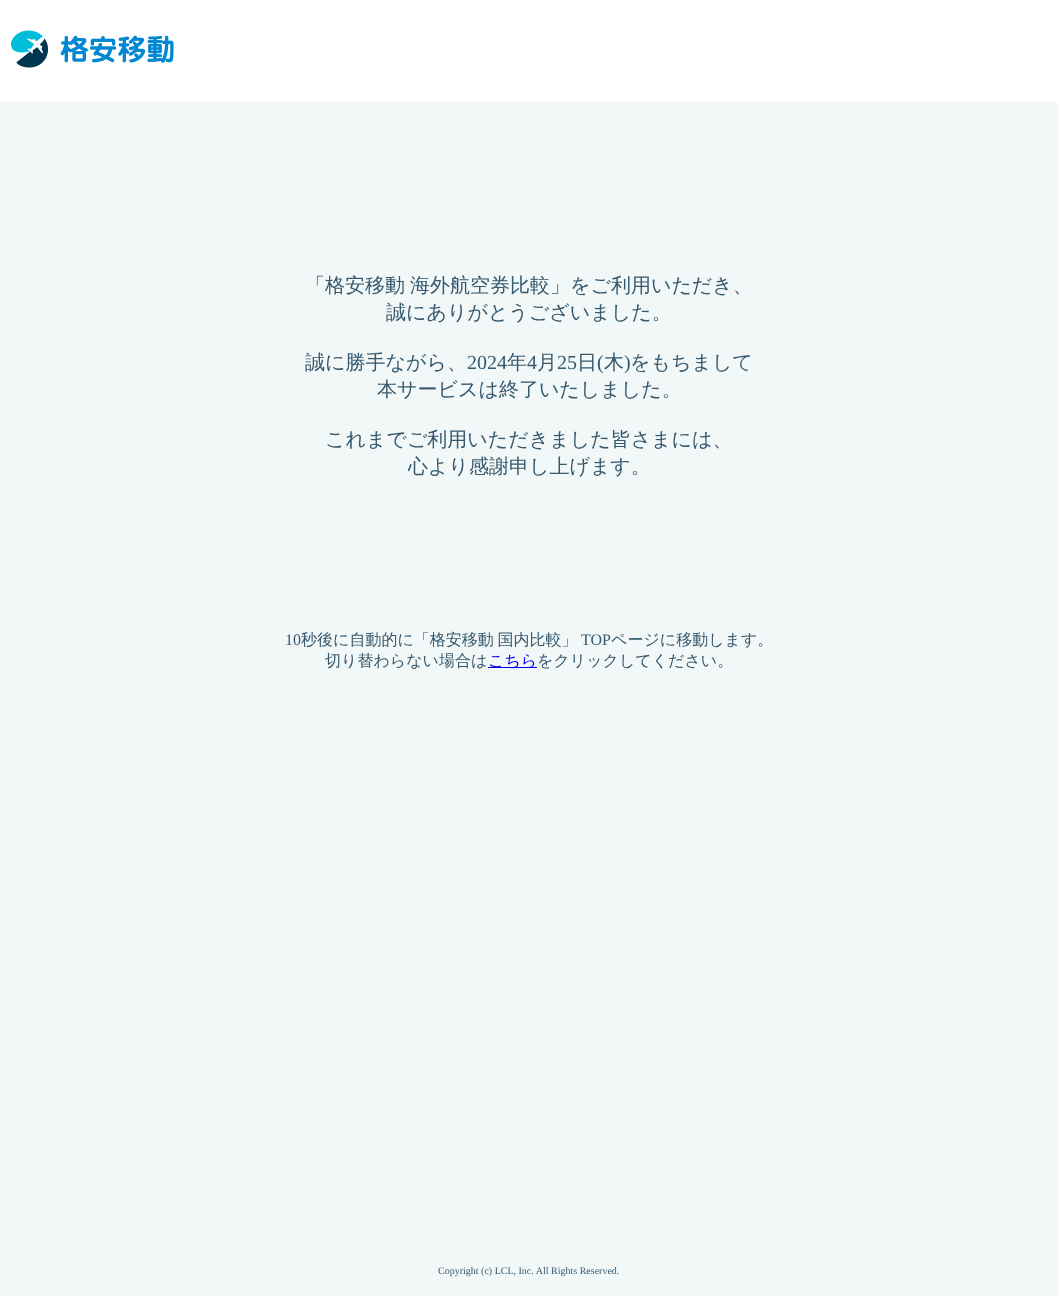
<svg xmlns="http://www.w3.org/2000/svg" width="1058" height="1296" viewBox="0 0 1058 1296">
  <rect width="100%" height="100%" fill="#f2f7f8"/>
  <path d="M0 0h1058v102H0z" fill="#fff"/>
  <image x="11" y="30" width="163" height="38" href="img/1.png"/>
  <path d="M488 667h49v1H488z" fill="#00e"/>
  <g font-family="WenQuanYi Zen Hei" font-size="20" font-weight="500" fill="#35596e">
    <text x="305" y="292" word-spacing="-1">「格安移動 海外航空券比較」をご利用いただき、</text>
    <text x="386" y="319">誠にありがとうございました。</text>
    <text x="305" y="369">誠に勝手ながら、</text>
  </g>
  <text x="467" y="369" font-family="Liberation Serif" font-size="20" fill="#35596e">2024</text>
  <text x="507" y="369" font-family="WenQuanYi Zen Hei" font-size="20" font-weight="500" fill="#35596e">年</text>
  <text x="527" y="369" font-family="Liberation Serif" font-size="20" fill="#35596e">4</text>
  <text x="537" y="369" font-family="WenQuanYi Zen Hei" font-size="20" font-weight="500" fill="#35596e">月</text>
  <text x="557" y="369" font-family="Liberation Serif" font-size="20" fill="#35596e">25</text>
  <text x="577" y="369" font-family="WenQuanYi Zen Hei" font-size="20" font-weight="500" fill="#35596e">日</text>
  <text x="597" y="369" font-family="Liberation Serif" font-size="20" fill="#35596e">(</text>
  <text x="604" y="369" font-family="WenQuanYi Zen Hei" font-size="20" font-weight="500" fill="#35596e">木</text>
  <text x="624" y="369" font-family="Liberation Serif" font-size="20" fill="#35596e">)</text>
  <g font-family="WenQuanYi Zen Hei" font-size="20" font-weight="500" fill="#35596e">
    <text x="630" y="369">をもちまして</text>
    <text x="377" y="396">本サービスは終了いたしました。</text>
    <text x="325" y="446">これまでご利用いただきました皆さまには、</text>
    <text x="408" y="473">心より感謝申し上げます。</text>
  </g>
  <text x="285" y="645" font-family="Liberation Serif" font-size="16" fill="#35596e">10</text>
  <text x="301" y="645" word-spacing="-1" font-family="WenQuanYi Zen Hei" font-size="16" font-weight="500" fill="#35596e">秒後に自動的に「格安移動 国内比較」</text>
  <text x="581" y="645" font-family="Liberation Serif" font-size="16" fill="#35596e">TOP</text>
  <g font-family="WenQuanYi Zen Hei" font-size="16" font-weight="500" fill="#35596e">
    <text x="611" y="645">ページに移動します。</text>
    <text x="325" y="666">切り替わらない場合は</text>
  </g>
  <text x="488" y="666" font-family="WenQuanYi Zen Hei" font-size="16" font-weight="500" fill="#00e">こちら</text>
  <text x="537" y="666" font-family="WenQuanYi Zen Hei" font-size="16" font-weight="500" fill="#35596e">をクリックしてください。</text>
  <text x="438" y="1274" font-family="Liberation Serif" font-size="10" fill="#35596e">Copyright (c) LCL, Inc. All Rights Reserved.</text>
</svg>
